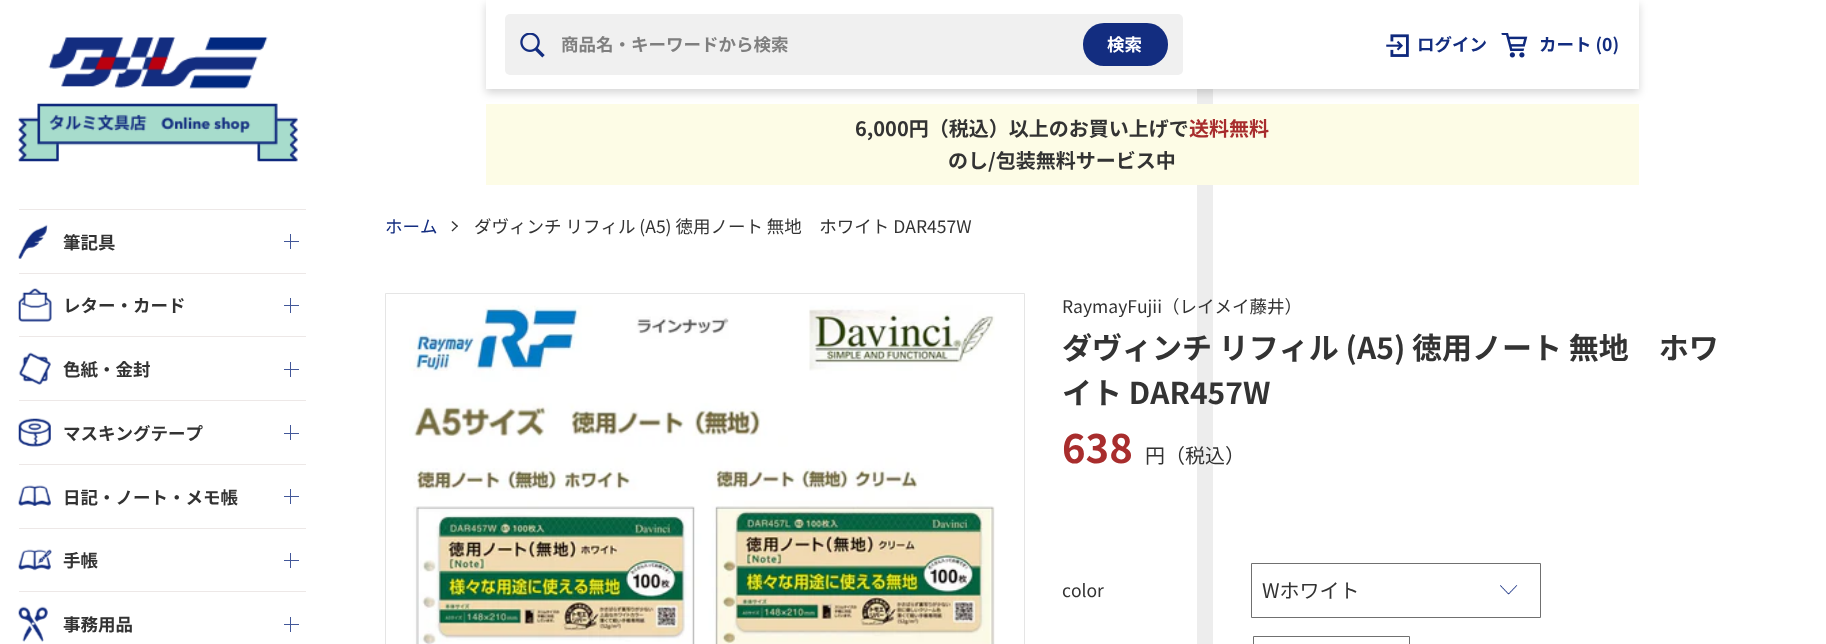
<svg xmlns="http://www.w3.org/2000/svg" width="1826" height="644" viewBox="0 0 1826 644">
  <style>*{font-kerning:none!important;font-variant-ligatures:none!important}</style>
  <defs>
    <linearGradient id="g1" gradientUnits="userSpaceOnUse" x1="325" y1="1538" x2="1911" y2="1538"><stop offset="0" stop-color="#fff"/><stop offset="0.11" stop-color="#fff"/><stop offset="0.11" stop-color="#ededed"/><stop offset="0.11" stop-color="#fff"/><stop offset="0.22" stop-color="#fff"/><stop offset="0.22" stop-color="#ededed"/><stop offset="0.22" stop-color="#fff"/><stop offset="0.33" stop-color="#fff"/><stop offset="0.33" stop-color="#ededed"/><stop offset="0.33" stop-color="#fff"/><stop offset="0.44" stop-color="#fff"/><stop offset="0.44" stop-color="#ededed"/><stop offset="0.44" stop-color="#fff"/><stop offset="0.55" stop-color="#fff"/><stop offset="0.55" stop-color="#ededed"/><stop offset="0.56" stop-color="#ededed"/><stop offset="0.56" stop-color="#fff"/><stop offset="0.67" stop-color="#fff"/><stop offset="0.67" stop-color="#ededed"/><stop offset="0.67" stop-color="#fff"/><stop offset="0.78" stop-color="#fff"/><stop offset="0.78" stop-color="#ededed"/><stop offset="0.78" stop-color="#fff"/><stop offset="0.89" stop-color="#fff"/><stop offset="0.89" stop-color="#ededed"/><stop offset="0.89" stop-color="#fff"/><stop offset="1" stop-color="#fff"/><stop offset="1" stop-color="#ededed"/></linearGradient>
  </defs>
  <rect width="100%" height="100%" fill="#fff"/>
  <image x="18" y="37" width="280" height="125" href="img/1.png"/>
  <path d="M19 209h287v1H19z" fill="#ede8e7"/>
  <path d="M19 273h287v1H19z" fill="#ede8e7"/>
  <image x="18" y="224" width="30" height="35" href="img/2.png"/>
  <path d="M284 241h15v1H284z" fill="#425799"/>
  <path d="M290 234h1v15H290z" fill="#425799"/>
  <path d="M19 336h287v1H19z" fill="#ede8e7"/>
  <image x="18" y="288" width="34" height="34" href="img/3.png"/>
  <path d="M284 305h15v1H284z" fill="#425799"/>
  <path d="M290 298h1v15H290z" fill="#425799"/>
  <path d="M19 400h287v1H19z" fill="#ede8e7"/>
  <image x="18" y="352" width="33" height="33" href="img/4.png"/>
  <path d="M284 369h15v1H284z" fill="#425799"/>
  <path d="M290 362h1v15H290z" fill="#425799"/>
  <path d="M19 464h287v1H19z" fill="#ede8e7"/>
  <image x="18" y="418" width="33" height="29" href="img/5.png"/>
  <path d="M284 433h15v1H284z" fill="#425799"/>
  <path d="M290 425h1v15H290z" fill="#425799"/>
  <path d="M19 528h287v1H19z" fill="#ede8e7"/>
  <image x="18" y="485" width="33" height="21" href="img/6.png"/>
  <path d="M284 496h15v1H284z" fill="#425799"/>
  <path d="M290 489h1v15H290z" fill="#425799"/>
  <path d="M19 591h287v1H19z" fill="#ede8e7"/>
  <image x="18" y="549" width="34" height="22" href="img/7.png"/>
  <path d="M284 560h15v1H284z" fill="#425799"/>
  <path d="M290 553h1v15H290z" fill="#425799"/>
  <image x="18" y="606" width="30" height="36" href="img/8.png"/>
  <path d="M284 624h15v1H284z" fill="#425799"/>
  <path d="M290 617h1v15H290z" fill="#425799"/>
  <path d="M1197 0h16v644H1197z" fill="url(#g1)"/>
  <path d="M486 104h1153v81H486z" fill="#fdfce6"/>
  <path d="M486 4h1153v89H486z" fill="#00000029" filter="blur(4px)"/>
  <path d="M486 0h1153v89H486z" fill="#fff"/>
  <rect x="505" y="14" width="678" height="61" rx="5" fill="#f0f0f0"/>
  <image x="520" y="33" width="25" height="25" href="img/9.png"/>
  <rect x="1083" y="23" width="85" height="43" rx="21" fill="#132d80"/>
  <image x="1386" y="34" width="23" height="23" href="img/10.png"/>
  <image x="1501" y="33" width="27" height="25" href="img/11.png"/>
  <path d="M452.5 221L458 226L457 227L451.5 222Z" fill="#333"/>
  <path d="M457 225.5L458 226L452.5 231.5L451.5 230.5Z" fill="#333"/>
  <path d="M385.5 293.5h639v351H385.5z" fill="none" stroke="#e5e5e5"/>
  <image x="409" y="305" width="586" height="339" href="img/12.png"/>
  <image x="1500" y="585" width="18" height="10" href="img/13.png"/>
  <path d="M1251.5 563.5h289v54H1251.5z" fill="none" stroke="#707070"/>
  <path d="M1253.5 636.5h156v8H1253.5z" fill="none" stroke="#707070"/>
  <g font-family="Noto Sans JP" font-size="17.5" font-weight="bold" fill="#333">
    <text x="63" y="249">筆記具</text>
    <text x="63" y="312">レター・カード</text>
    <text x="63" y="376">色紙・金封</text>
    <text x="63" y="440">マスキングテープ</text>
    <text x="63" y="504">日記・ノート・メモ帳</text>
    <text x="63" y="567">手帳</text>
    <text x="63" y="631">事務用品</text>
  </g>
  <text x="561" y="51" font-family="Noto Sans JP" font-size="17.5" font-weight="bold" fill="#7f7f7f">商品名・キーワードから検索</text>
  <text x="1107" y="51" font-family="Noto Sans JP" font-size="17.5" font-weight="bold" fill="#fff">検索</text>
  <g font-family="Noto Sans JP" font-size="17.5" font-weight="bold" fill="#132d80">
    <text x="1417" y="51">ログイン</text>
    <text x="1539" y="51">カート (0)</text>
  </g>
  <text x="855" y="136" font-family="Noto Sans JP" font-size="20" font-weight="bold" fill="#333">6,000円（税込）以上のお買い上げで</text>
  <text x="1189" y="136" font-family="Noto Sans JP" font-size="20" font-weight="bold" fill="#a82d2d">送料無料</text>
  <text x="948" y="168" font-family="Noto Sans JP" font-size="20" font-weight="bold" fill="#333">のし/包装無料サービス中</text>
  <text x="385" y="233" font-family="Noto Sans JP" font-size="17.5" fill="#132d80">ホーム</text>
  <g font-family="Noto Sans JP" font-size="17.5" fill="#333">
    <text x="474" y="233">ダヴィンチ リフィル (A5) 徳用ノート 無地　ホワイト DAR457W</text>
    <text x="1062" y="313">RaymayFujii（レイメイ藤井）</text>
  </g>
  <g font-family="Noto Sans JP" font-size="30" font-weight="bold" fill="#333">
    <text x="1062" y="359">ダヴィンチ リフィル (A5) 徳用ノート 無地　ホワ</text>
    <text x="1062" y="404">イト DAR457W</text>
  </g>
  <text x="1062" y="463" font-family="Noto Sans JP" font-size="40" font-weight="bold" fill="#a82d2d">638</text>
  <text x="1145" y="463" font-family="Noto Sans JP" font-size="20" fill="#333">円（税込）</text>
  <text x="1062" y="597" font-family="Noto Sans JP" font-size="17.5" fill="#333">color</text>
  <text x="1262" y="598" font-family="Noto Sans JP" font-size="20" fill="#333">Wホワイト</text>
</svg>
